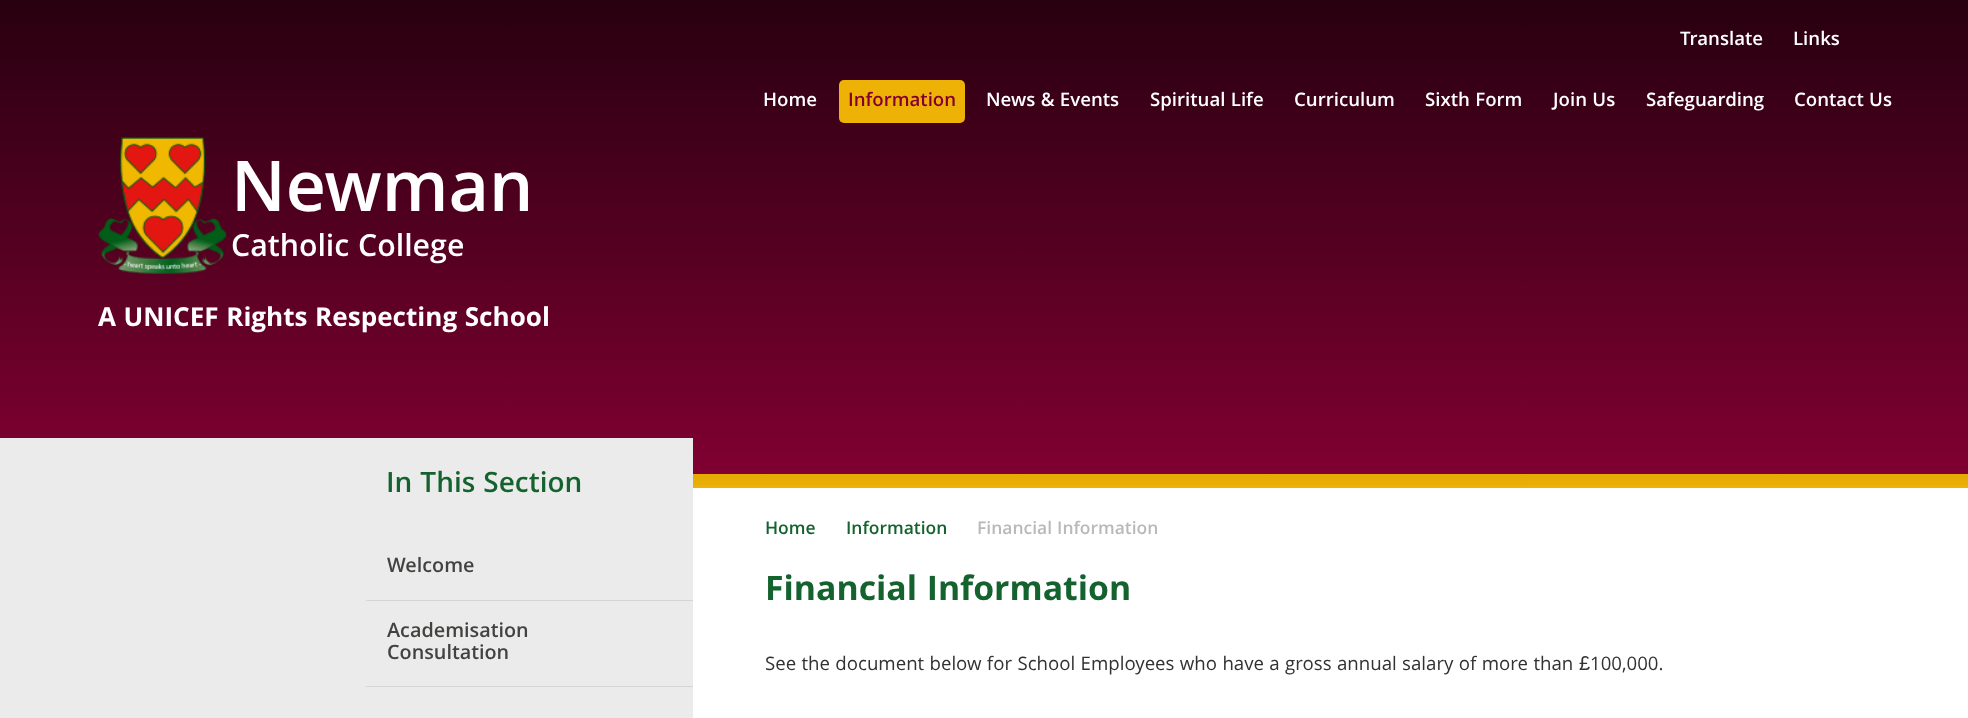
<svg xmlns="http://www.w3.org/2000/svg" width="1968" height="718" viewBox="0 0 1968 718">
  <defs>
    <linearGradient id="g1" gradientUnits="userSpaceOnUse" x1="984" y1="0" x2="984" y2="500"><stop offset="0" stop-color="#000" stop-opacity="0.7"/><stop offset="1" stop-color="#000" stop-opacity="0"/></linearGradient>
  </defs>
  <rect width="100%" height="100%" fill="#fff"/>
  <path d="M0 0h1968v474H0z" fill="#840033"/>
  <path d="M693 474h1275v14H693z" fill="#edb205"/>
  <path d="M0 0h1968v485H0z" fill="url(#g1)"/>
  <image x="98" y="137" width="129" height="137" href="img/1.png"/>
  <rect x="839" y="80" width="126" height="43" rx="5" fill="#edb205"/>
  <path d="M0 438h693v280H0z" fill="#ebebeb"/>
  <path d="M366 600h327v1H366z" fill="#d5d5d5"/>
  <path d="M366 686h327v1H366z" fill="#d5d5d5"/>
  <g font-family="Khula" font-size="20" font-weight="600" fill="#fff">
    <text x="1680" y="45">Translate</text>
    <text x="1793" y="45">Links</text>
  </g>
  <text x="231" y="211" font-family="Khula" font-size="75" font-weight="600" fill="#fff">Newman</text>
  <text x="231" y="256" font-family="Khula" font-size="32.5" font-weight="600" fill="#fff">Catholic College</text>
  <text x="98" y="326" font-family="Khula" font-size="28" font-weight="bold" fill="#fff">A UNICEF Rights Respecting School</text>
  <text x="763" y="106" font-family="Khula" font-size="20" font-weight="600" fill="#fff">Home</text>
  <text x="848" y="106" font-family="Khula" font-size="20" font-weight="600" fill="#840033">Information</text>
  <g font-family="Khula" font-size="20" font-weight="600" fill="#fff">
    <text x="986" y="106">News &amp; Events</text>
    <text x="1150" y="106">Spiritual Life</text>
    <text x="1294" y="106">Curriculum</text>
    <text x="1425" y="106">Sixth Form</text>
    <text x="1553" y="106">Join Us</text>
    <text x="1646" y="106">Safeguarding</text>
    <text x="1794" y="106">Contact Us</text>
  </g>
  <text x="386" y="492" font-family="Khula" font-size="30" font-weight="600" fill="#14622d">In This Section</text>
  <g font-family="Khula" font-size="21.25" font-weight="600" fill="#424241">
    <text x="387" y="572">Welcome</text>
    <text x="387" y="637">Academisation</text>
    <text x="387" y="659">Consultation</text>
  </g>
  <g font-family="Khula" font-size="18.75" font-weight="600" fill="#14622d">
    <text x="765" y="534">Home</text>
    <text x="846" y="534">Information</text>
  </g>
  <text x="977" y="534" font-family="Khula" font-size="18.75" font-weight="600" fill="#b9b9b9">Financial Information</text>
  <text x="765" y="600" font-family="Khula" font-size="36.25" font-weight="bold" fill="#14622d">Financial Information</text>
  <text x="765" y="670" font-family="Khula" font-size="20" fill="#323232">See the document below for School Employees who have a gross annual salary of more than</text>
  <text x="1579" y="670" font-family="Liberation Sans" font-size="20" fill="#323232">£</text>
  <text x="1590" y="670" font-family="Khula" font-size="20" fill="#323232">100,000.</text>
</svg>
